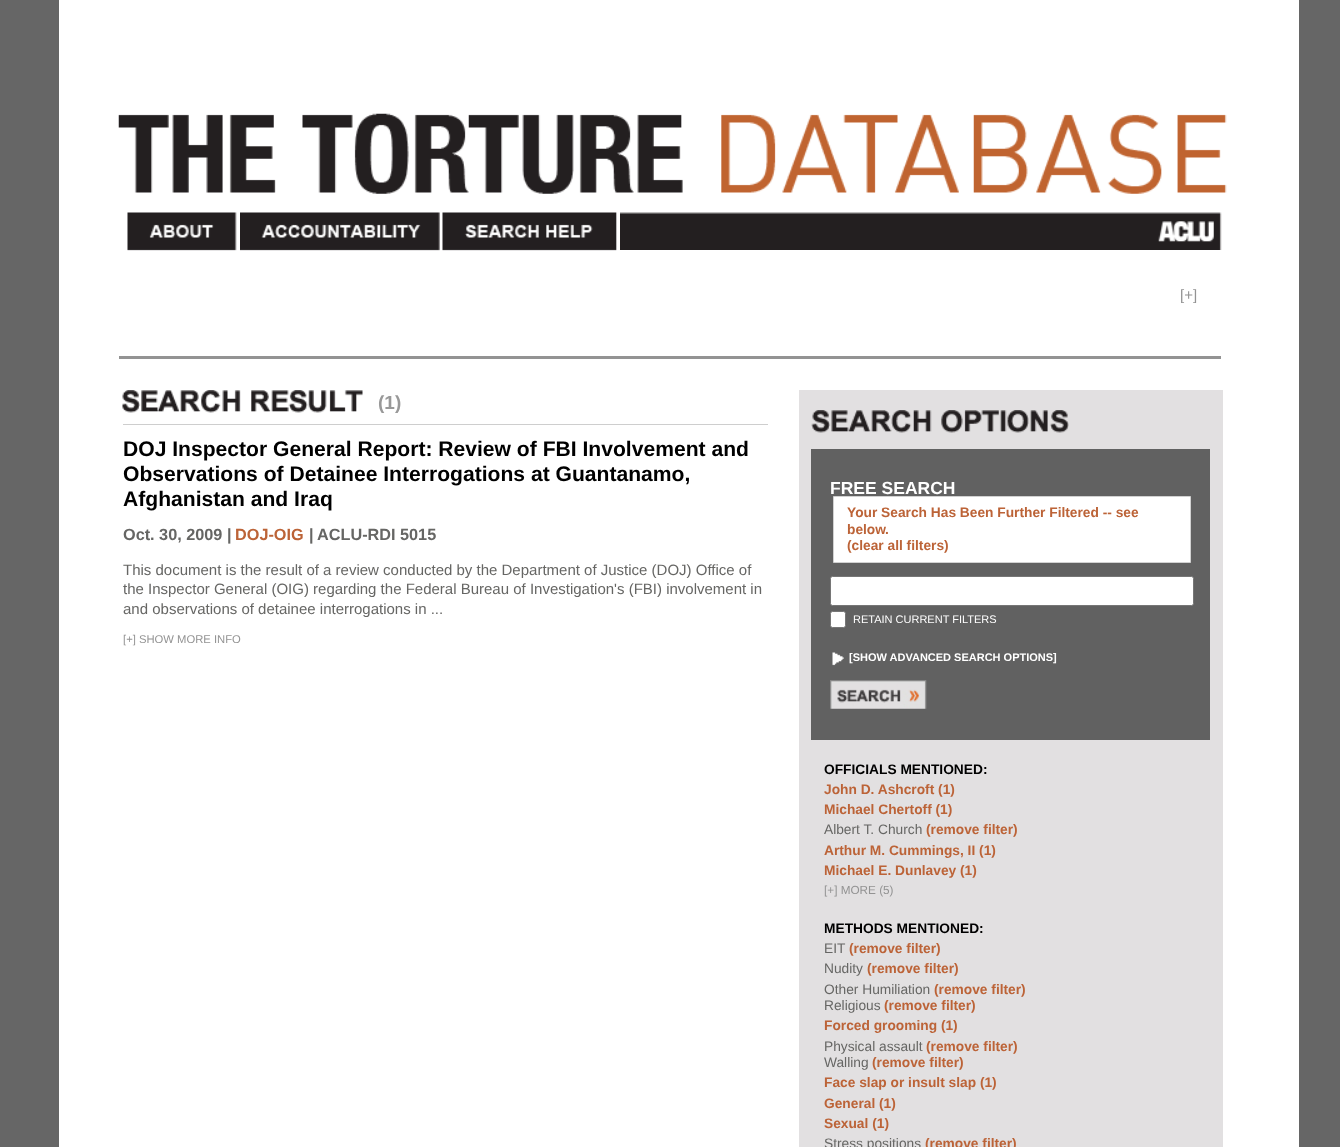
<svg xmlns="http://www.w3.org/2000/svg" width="1340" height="1147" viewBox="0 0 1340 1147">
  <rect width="100%" height="100%" fill="#666"/>
  <path d="M59 0h1240v1147H59z" fill="#fff"/>
  <image x="118" y="113" width="1109" height="81" href="img/1.png"/>
  <image x="127" y="212" width="110" height="39" href="img/2.png"/>
  <image x="240" y="212" width="200" height="39" href="img/3.png"/>
  <image x="442" y="212" width="175" height="39" href="img/4.png"/>
  <image x="620" y="212" width="602" height="38" href="img/5.png"/>
  <path d="M119 356h1102v3H119z" fill="#939393"/>
  <path d="M123 424h645v1H123z" fill="#cecece"/>
  <image x="122" y="390" width="241" height="23" href="img/6.png"/>
  <path d="M799 390h424v757H799z" fill="#e2e0e1"/>
  <image x="811" y="410" width="258" height="23" href="img/7.png"/>
  <path d="M811 449h399v291H811z" fill="#616161"/>
  <path d="M833.5 496.5h357v66H833.5z" fill="#fff" stroke="#d1d1d1"/>
  <rect x="830.5" y="576.5" width="363" height="29" rx="2" fill="#fff" stroke="#767676"/>
  <rect x="830.5" y="611.5" width="15" height="16" rx="2" fill="#fff" stroke="#767676"/>
  <image x="832" y="652" width="12" height="14" href="img/8.png"/>
  <image x="830" y="680" width="97" height="29" href="img/9.png"/>
  <text x="1180" y="300" font-family="Liberation Sans" font-size="15" fill="#939393">[+]</text>
  <text x="378" y="409" font-family="Liberation Sans" font-size="19" font-weight="bold" fill="#999">(1)</text>
  <g font-family="Liberation Sans" font-size="21.1" font-weight="bold" fill="#000">
    <text x="123" y="456">DOJ Inspector General Report: Review of FBI Involvement and</text>
    <text x="123" y="481">Observations of Detainee Interrogations at Guantanamo,</text>
    <text x="123" y="506">Afghanistan and Iraq</text>
  </g>
  <text x="123" y="540" font-family="Liberation Sans" font-size="16.25" font-weight="bold" fill="#666664">Oct. 30, 2009 |</text>
  <text x="235" y="540" font-family="Liberation Sans" font-size="16.25" font-weight="bold" fill="#bc6337">DOJ-OIG</text>
  <g font-family="Liberation Sans" font-size="16.25" font-weight="bold" fill="#666664">
    <text x="309" y="540">|</text>
    <text x="317" y="540">ACLU-RDI 5015</text>
  </g>
  <g font-family="Liberation Sans" font-size="15" fill="#666664">
    <text x="123" y="575">This document is the result of a review conducted by the Department of Justice (DOJ) Office of</text>
    <text x="123" y="594">the Inspector General (OIG) regarding the Federal Bureau of Investigation's (FBI) involvement in</text>
    <text x="123" y="614">and observations of detainee interrogations in ...</text>
  </g>
  <text x="123" y="643" font-family="Liberation Sans" font-size="11.25" fill="#939393">[+] SHOW MORE INFO</text>
  <text x="830" y="494" font-family="Liberation Sans" font-size="17.5" font-weight="bold" fill="#fff">FREE SEARCH</text>
  <g font-family="Liberation Sans" font-size="13.75" font-weight="bold" fill="#bc6337">
    <text x="847" y="517">Your Search Has Been Further Filtered -- see</text>
    <text x="847" y="534">below</text>
    <text x="885" y="534">.</text>
    <text x="847" y="550">(clear all filters)</text>
  </g>
  <text x="853" y="623" font-family="Liberation Sans" font-size="11" fill="#fff">RETAIN CURRENT FILTERS</text>
  <text x="849" y="661" font-family="Liberation Sans" font-size="11" font-weight="bold" fill="#fff">[SHOW ADVANCED SEARCH OPTIONS]</text>
  <text x="824" y="774" font-family="Liberation Sans" font-size="13.75" font-weight="bold" fill="#000">OFFICIALS MENTIONED:</text>
  <g font-family="Liberation Sans" font-size="13.75" font-weight="bold" fill="#bc6337">
    <text x="824" y="794">John D. Ashcroft (1)</text>
    <text x="824" y="814">Michael Chertoff (1)</text>
  </g>
  <text x="824" y="834" font-family="Liberation Sans" font-size="13.75" fill="#666664">Albert T. Church</text>
  <g font-family="Liberation Sans" font-size="13.75" font-weight="bold" fill="#bc6337">
    <text x="926" y="834">(remove filter)</text>
    <text x="824" y="855">Arthur M. Cummings, II (1)</text>
    <text x="824" y="875">Michael E. Dunlavey (1)</text>
  </g>
  <text x="824" y="894" font-family="Liberation Sans" font-size="11.75" fill="#939393">[+] MORE (5)</text>
  <text x="824" y="933" font-family="Liberation Sans" font-size="13.75" font-weight="bold" fill="#000">METHODS MENTIONED:</text>
  <text x="824" y="953" font-family="Liberation Sans" font-size="13.75" fill="#666664">EIT</text>
  <text x="849" y="953" font-family="Liberation Sans" font-size="13.75" font-weight="bold" fill="#bc6337">(remove filter)</text>
  <text x="824" y="973" font-family="Liberation Sans" font-size="13.75" fill="#666664">Nudity</text>
  <text x="867" y="973" font-family="Liberation Sans" font-size="13.75" font-weight="bold" fill="#bc6337">(remove filter)</text>
  <text x="824" y="994" font-family="Liberation Sans" font-size="13.75" fill="#666664">Other Humiliation</text>
  <text x="934" y="994" font-family="Liberation Sans" font-size="13.75" font-weight="bold" fill="#bc6337">(remove filter)</text>
  <text x="824" y="1010" font-family="Liberation Sans" font-size="13.75" fill="#666664">Religious</text>
  <g font-family="Liberation Sans" font-size="13.75" font-weight="bold" fill="#bc6337">
    <text x="884" y="1010">(remove filter)</text>
    <text x="824" y="1030">Forced grooming (1)</text>
  </g>
  <text x="824" y="1051" font-family="Liberation Sans" font-size="13.75" fill="#666664">Physical assault</text>
  <text x="926" y="1051" font-family="Liberation Sans" font-size="13.75" font-weight="bold" fill="#bc6337">(remove filter)</text>
  <text x="824" y="1067" font-family="Liberation Sans" font-size="13.75" fill="#666664">Walling</text>
  <g font-family="Liberation Sans" font-size="13.75" font-weight="bold" fill="#bc6337">
    <text x="872" y="1067">(remove filter)</text>
    <text x="824" y="1087">Face slap or insult slap (1)</text>
    <text x="824" y="1108">General (1)</text>
    <text x="824" y="1128">Sexual (1)</text>
  </g>
  <text x="824" y="1148" font-family="Liberation Sans" font-size="13.75" fill="#666664">Stress positions</text>
  <text x="925" y="1148" font-family="Liberation Sans" font-size="13.75" font-weight="bold" fill="#bc6337">(remove filter)</text>
</svg>
